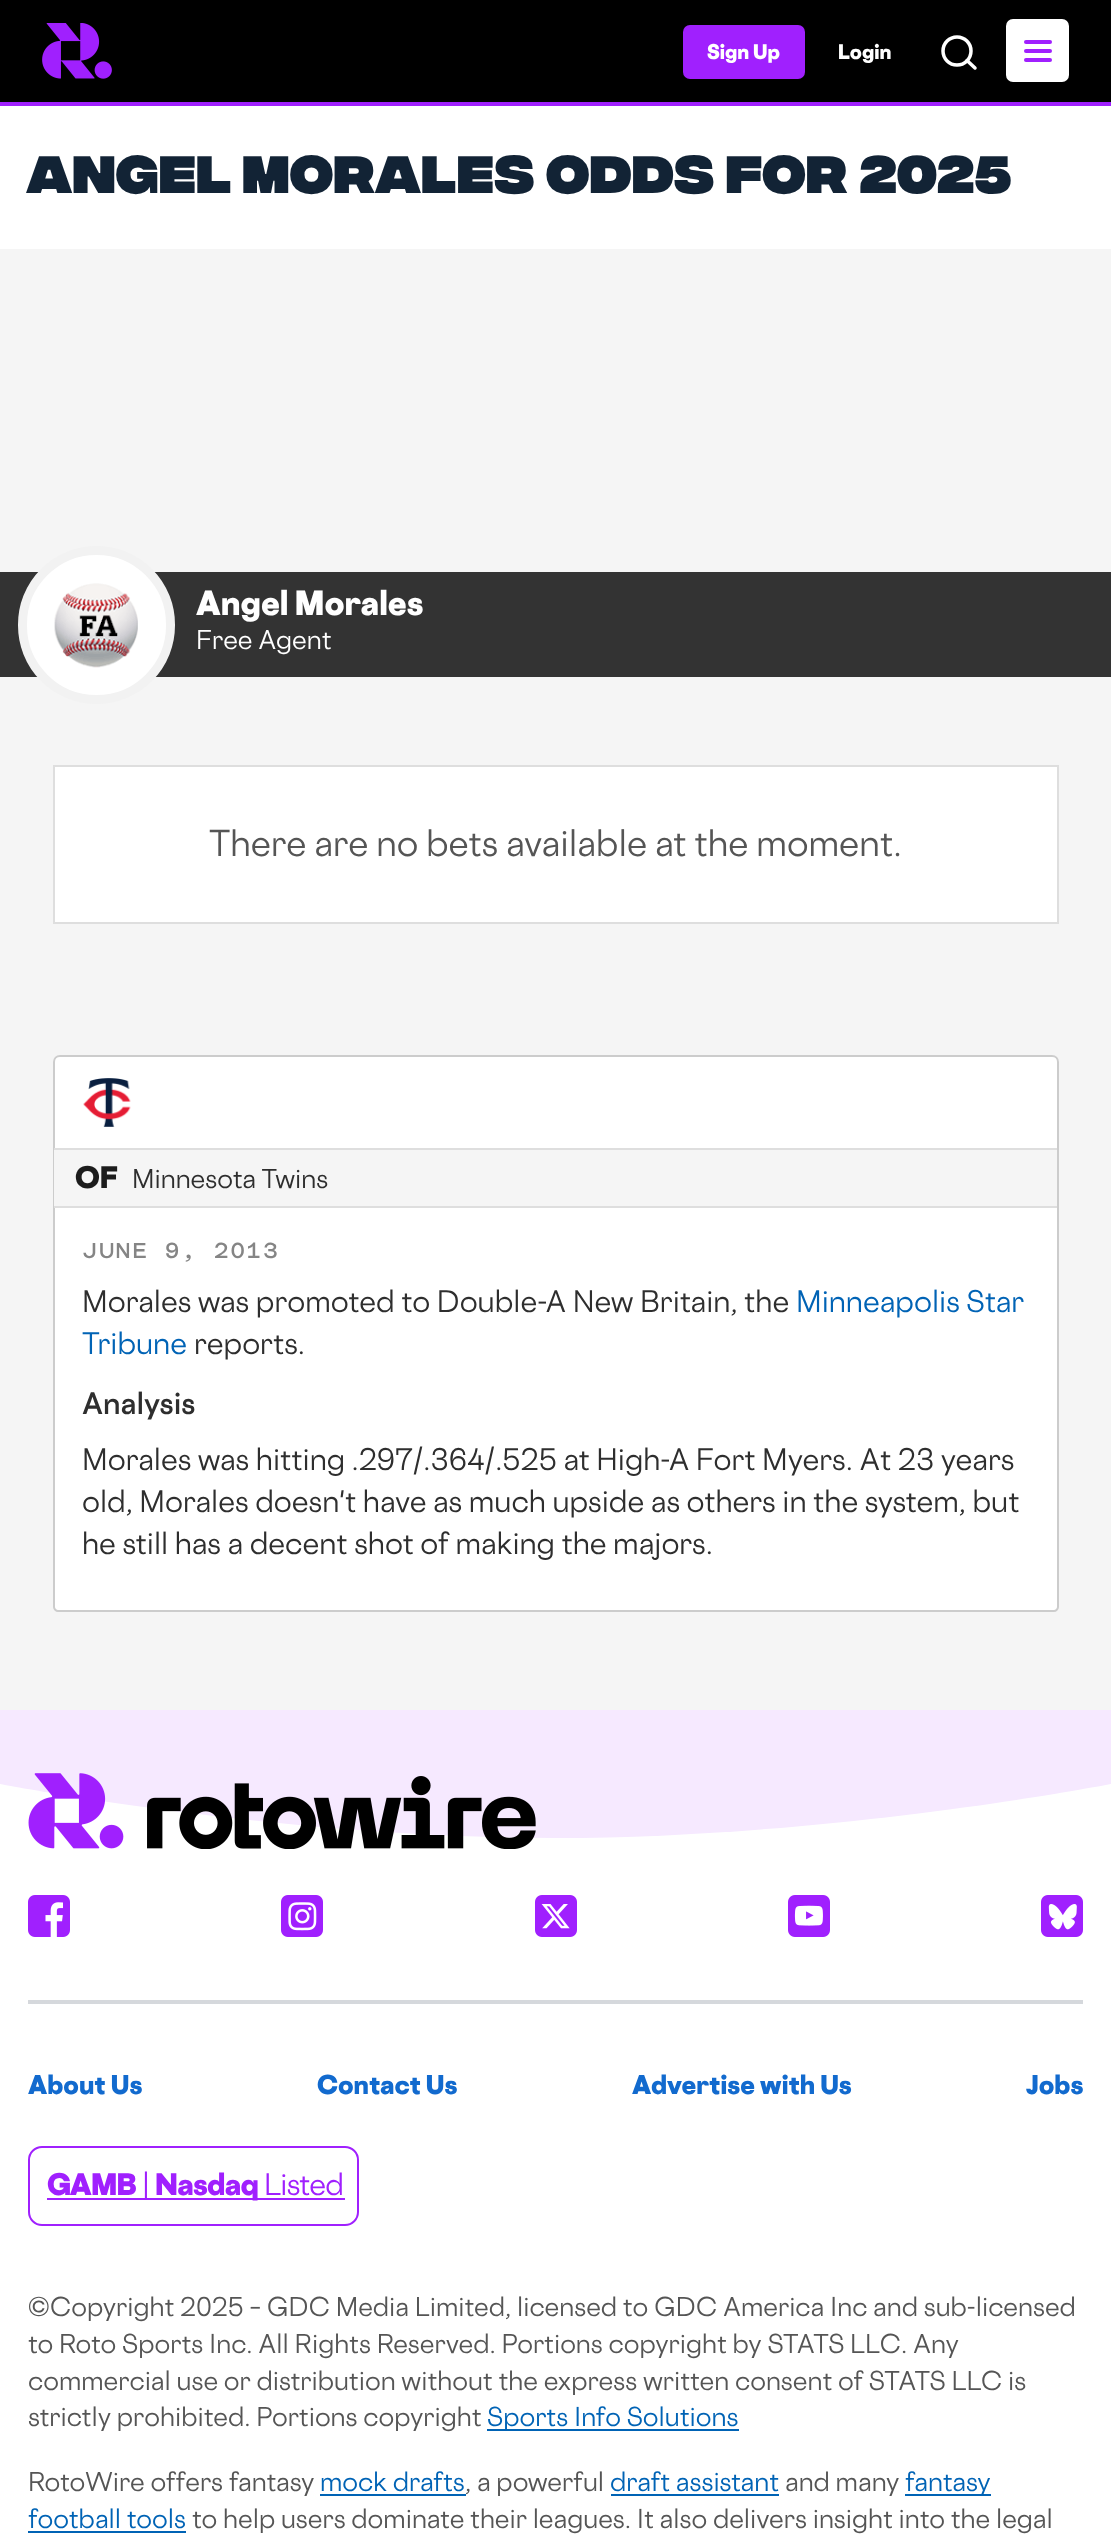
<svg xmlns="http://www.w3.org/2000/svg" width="1111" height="2537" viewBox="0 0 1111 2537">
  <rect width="100%" height="100%" fill="#fff"/>
  <path d="M0 0h1111v102H0z" fill="#000"/>
  <path d="M0 102h1111v4H0z" fill="#a020fe"/>
  <image x="42" y="23" width="70" height="56" href="img/1.png"/>
  <rect x="683" y="25" width="122" height="54" rx="7" fill="#a020fe"/>
  <circle cx="957" cy="51" r="14" fill="none" stroke="#fff" stroke-width="3.5"/>
  <path d="M975 68L967 60.5" fill="none" stroke="#fff" stroke-width="3.5" stroke-linecap="round" stroke-linejoin="round"/>
  <rect x="1006" y="19" width="63" height="63" rx="7" fill="#fff"/>
  <rect x="1024" y="40" width="28" height="4" rx="2" fill="#a020fe"/>
  <rect x="1024" y="49" width="28" height="4" rx="2" fill="#a020fe"/>
  <rect x="1024" y="58" width="28" height="4" rx="2" fill="#a020fe"/>
  <path d="M0 249h1111v1461H0z" fill="#f5f5f5"/>
  <path d="M0 572h1111v105H0z" fill="#333"/>
  <rect x="22.5" y="550.5" width="148" height="149" rx="74" fill="#fff" stroke="#f2f2f2" stroke-width="9"/>
  <image x="54" y="583" width="84" height="85" href="img/2.png"/>
  <path d="M54 766h1004v157H54z" fill="#fff" stroke="#dedede" stroke-width="2"/>
  <path d="M60 1056H1052C1055.5 1056 1058 1058.5 1058 1062V1607C1058 1609 1056 1611 1054 1611H58C56 1611 54 1609 54 1607V1062C54 1058.5 56.5 1056 60 1056Z" fill="#fff" stroke="#ccc" stroke-width="2"/>
  <image x="83" y="1078" width="48" height="49" href="img/3.png"/>
  <path d="M54 1150h1003v56H54z" fill="#f5f5f5"/>
  <path d="M54 1148h1003v2H54z" fill="#dedede"/>
  <path d="M54 1206h1003v2H54z" fill="#dedede"/>
  <path d="M0 1710H1111V1784C1111 1784 833 1838 555 1838C278 1838 0 1784 0 1784Z" fill="#f6e9ff" fill-rule="evenodd"/>
  <image x="28" y="1773" width="508" height="76" href="img/4.png"/>
  <image x="28" y="1895" width="42" height="42" href="img/5.png"/>
  <image x="281" y="1895" width="42" height="42" href="img/6.png"/>
  <image x="535" y="1895" width="42" height="42" href="img/7.png"/>
  <image x="788" y="1895" width="42" height="42" href="img/8.png"/>
  <image x="1041" y="1895" width="42" height="42" href="img/9.png"/>
  <path d="M28 2000h1055v4H28z" fill="#d5d8dc"/>
  <rect x="29" y="2147" width="329" height="78" rx="13" fill="none" stroke="#a020fe" stroke-width="2"/>
  <path d="M47 2198h298v2H47z" fill="#a020fe"/>
  <path d="M487 2429h252v2H487z" fill="#0063b5"/>
  <path d="M320 2494h146v2H320z" fill="#0063b5"/>
  <path d="M611 2494h168v2H611z" fill="#0063b5"/>
  <path d="M905 2494h86v2H905z" fill="#0063b5"/>
  <path d="M28 2531h158v2H28z" fill="#0063b5"/>
  <g font-family="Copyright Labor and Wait" font-size="19" font-weight="800" fill="#fff">
    <text x="707" y="59">Sign Up</text>
    <text x="838" y="59">Login</text>
  </g>
  <text x="26" y="193" font-family="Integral" font-size="52.5" font-weight="900" fill="#122335">Angel Morales Odds for 2025</text>
  <text x="196" y="615" font-family="Copyright Labor and Wait" font-size="31.5" font-weight="800" fill="#fff">Angel Morales</text>
  <text x="196" y="649" font-family="'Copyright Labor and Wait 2'" font-size="24.5" font-weight="800" fill="#fff">Free Agent</text>
  <text x="209" y="856" font-family="'Copyright Labor and Wait 2'" font-size="33.6" font-weight="800" fill="#555">There are no bets available at the moment.</text>
  <text x="75" y="1188" font-family="Copyright Labor and Wait" font-size="28" font-weight="800" fill="#1c1c1c">OF</text>
  <text x="132" y="1188" font-family="'Copyright Labor and Wait 2'" font-size="24.5" font-weight="800" fill="#2e2e2e">Minnesota Twins</text>
  <text x="82" y="1258" font-family="Copyright Labor and Wait" font-size="21" font-weight="600" fill="#858585">JUNE 9, 2013</text>
  <text x="82" y="1312" font-family="'Copyright Labor and Wait 2'" font-size="28" font-weight="800" fill="#2e2e2e">Morales was promoted to Double-A New Britain, the</text>
  <g font-family="'Copyright Labor and Wait 2'" font-size="28" font-weight="800" fill="#0063b5">
    <text x="796" y="1312">Minneapolis Star</text>
    <text x="82" y="1354">Tribune</text>
  </g>
  <text x="194" y="1354" font-family="'Copyright Labor and Wait 2'" font-size="28" font-weight="800" fill="#2e2e2e">reports.</text>
  <text x="82" y="1414" font-family="'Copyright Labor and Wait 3'" font-size="28" font-weight="800" fill="#2e2e2e">Analysis</text>
  <g font-family="'Copyright Labor and Wait 2'" font-size="28" font-weight="800" fill="#2e2e2e">
    <text x="82" y="1470">Morales was hitting .297/.364/.525 at High-A Fort Myers. At 23 years</text>
    <text x="82" y="1512">old, Morales doesn't have as much upside as others in the system, but</text>
    <text x="82" y="1554">he still has a decent shot of making the majors.</text>
  </g>
  <g font-family="Copyright Labor and Wait" font-size="24.5" font-weight="800" fill="#126ace">
    <text x="28" y="2094">About Us</text>
    <text x="317" y="2094">Contact Us</text>
    <text x="632" y="2094">Advertise with Us</text>
    <text x="1026" y="2094">Jobs</text>
  </g>
  <text x="47" y="2195" font-family="Copyright Labor and Wait" font-size="28" font-weight="800" letter-spacing="-0.75" fill="#a020fe">GAMB</text>
  <text x="142" y="2195" font-family="'Copyright Labor and Wait 2'" font-size="28" font-weight="800" letter-spacing="-0.75" fill="#a020fe">|</text>
  <text x="155" y="2195" font-family="Copyright Labor and Wait" font-size="28" font-weight="800" letter-spacing="-0.75" fill="#a020fe">Nasdaq</text>
  <text x="264" y="2195" font-family="'Copyright Labor and Wait 2'" font-size="28" font-weight="800" letter-spacing="-0.75" fill="#a020fe">Listed</text>
  <g font-family="'Copyright Labor and Wait 2'" font-size="24.5" font-weight="800" fill="#555">
    <text x="28" y="2316">© Copyright 2025 – GDC Media Limited, licensed to GDC America Inc and sub-licensed</text>
    <text x="28" y="2353">to Roto Sports Inc. All Rights Reserved. Portions copyright by STATS LLC. Any</text>
    <text x="28" y="2390">commercial use or distribution without the express written consent of STATS LLC is</text>
    <text x="28" y="2426">strictly prohibited. Portions copyright</text>
  </g>
  <text x="487" y="2426" font-family="'Copyright Labor and Wait 2'" font-size="24.5" font-weight="800" fill="#0063b5">Sports Info Solutions</text>
  <text x="28" y="2491" font-family="'Copyright Labor and Wait 2'" font-size="24.5" font-weight="800" fill="#555">RotoWire offers fantasy</text>
  <text x="320" y="2491" font-family="'Copyright Labor and Wait 2'" font-size="24.5" font-weight="800" fill="#0063b5">mock drafts</text>
  <text x="465" y="2491" font-family="'Copyright Labor and Wait 2'" font-size="24.5" font-weight="800" fill="#555">, a powerful</text>
  <text x="610" y="2491" font-family="'Copyright Labor and Wait 2'" font-size="24.5" font-weight="800" fill="#0063b5">draft assistant</text>
  <text x="785" y="2491" font-family="'Copyright Labor and Wait 2'" font-size="24.5" font-weight="800" fill="#555">and many</text>
  <g font-family="'Copyright Labor and Wait 2'" font-size="24.5" font-weight="800" fill="#0063b5">
    <text x="905" y="2491">fantasy</text>
    <text x="28" y="2528">football tools</text>
  </g>
  <text x="192" y="2528" font-family="'Copyright Labor and Wait 2'" font-size="24.5" font-weight="800" fill="#555">to help users dominate their leagues. It also delivers insight into the legal</text>
</svg>
